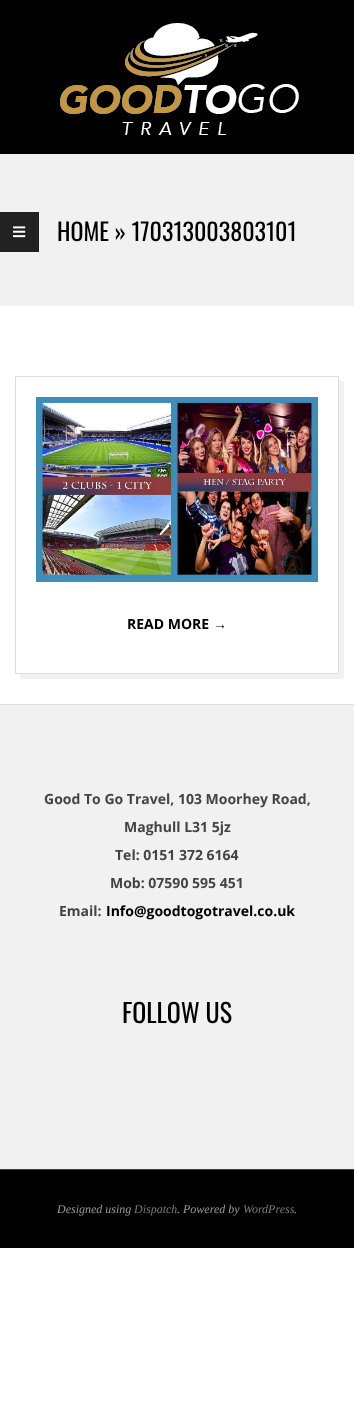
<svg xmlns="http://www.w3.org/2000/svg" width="354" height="1413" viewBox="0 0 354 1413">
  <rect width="100%" height="100%" fill="#fff"/>
  <path d="M0 0h354v154H0z" fill="#000"/>
  <image x="60" y="23" width="239" height="112" href="img/1.png"/>
  <path d="M0 154h354v152H0z" fill="#f1f1f1"/>
  <path d="M0 212h39v40H0z" fill="#222"/>
  <path d="M0 212H39L38 213H0Z" fill="#1f1f1f"/>
  <path d="M39 212V252L38 251V213Z" fill="#1f1f1f"/>
  <path d="M39 252H0V251H38Z" fill="#1f1f1f"/>
  <image x="13" y="226" width="13" height="12" href="img/2.png"/>
  <path d="M20 674V679H344V381H339V674Z" fill="#f1f1f1"/>
  <path d="M15.5 376.5h323v297H15.5z" fill="none" stroke="#ddd"/>
  <image x="36" y="397" width="282" height="185" href="img/3.png"/>
  <path d="M0 705h354v464H0z" fill="#f1f1f1"/>
  <path d="M0 704h354v1H0z" fill="#ddd"/>
  <path d="M0 1170h354v78H0z" fill="#000"/>
  <path d="M0 1169h354v1H0z" fill="#404040"/>
  <text x="57" y="241" font-family="Oswald" font-size="24" fill="#000">HOME » 170313003803101</text>
  <text x="127" y="629" font-family="Open Sans" font-size="14" font-weight="bold" fill="#000">READ MORE</text>
  <text x="213" y="629" font-family="Liberation Sans" font-size="14" font-weight="bold" fill="#000">→</text>
  <g font-family="Open Sans" font-size="14" font-weight="bold" fill="#444">
    <text x="44" y="804">Good To Go Travel, 103 Moorhey Road,</text>
    <text x="124" y="832">Maghull L31 5jz</text>
    <text x="115" y="860">Tel: 0151 372 6164</text>
    <text x="110" y="888">Mob: 07590 595 451</text>
    <text x="59" y="916">Email:</text>
  </g>
  <text x="106" y="916" font-family="Open Sans" font-size="14" font-weight="bold" fill="#000">Info@goodtogotravel.co.uk</text>
  <text x="122" y="1023" font-family="Oswald" font-size="26" fill="#000">FOLLOW US</text>
  <text x="57" y="1213" font-family="Liberation Serif" font-size="12" font-style="italic" fill="#999">Designed using</text>
  <text x="134" y="1213" font-family="Liberation Serif" font-size="12" font-style="italic" fill="#777">Dispatch</text>
  <text x="177" y="1213" font-family="Liberation Serif" font-size="12" font-style="italic" fill="#999">. Powered by</text>
  <text x="243" y="1213" font-family="Liberation Serif" font-size="12" font-style="italic" fill="#777">WordPress</text>
  <text x="294" y="1213" font-family="Liberation Serif" font-size="12" font-style="italic" fill="#999">.</text>
</svg>
